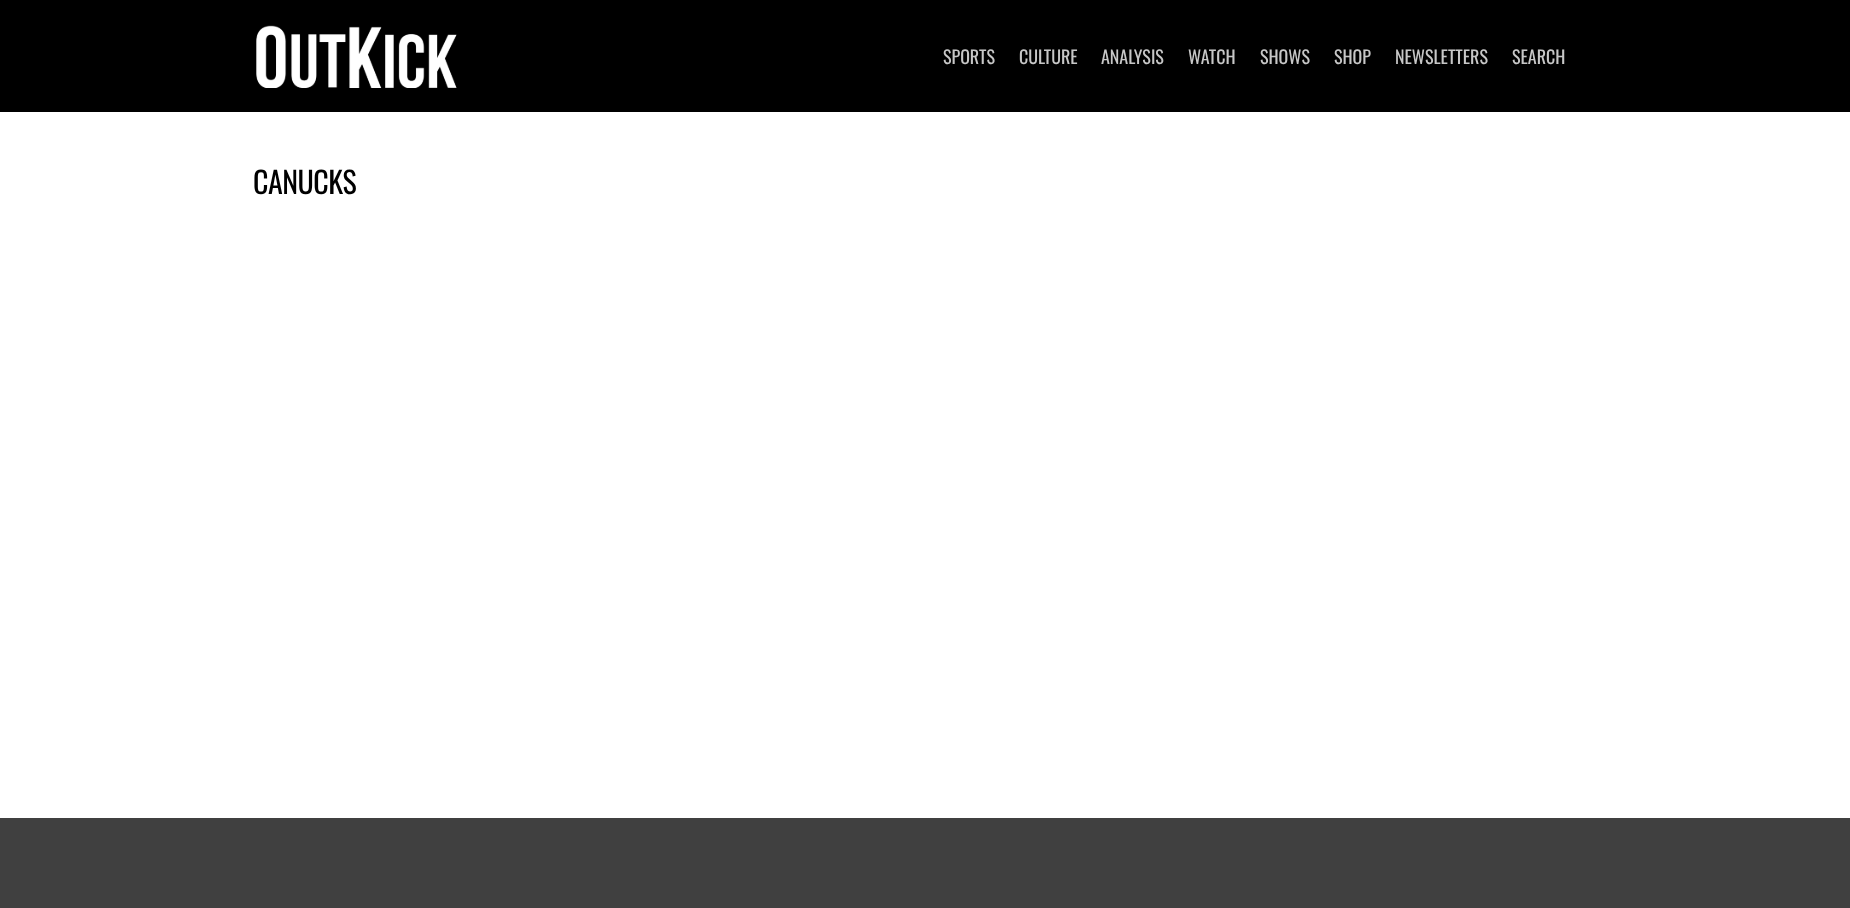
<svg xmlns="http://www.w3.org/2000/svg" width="1850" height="908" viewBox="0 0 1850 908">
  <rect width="100%" height="100%" fill="#fff"/>
  <path d="M0 0h1850v112H0z" fill="#000"/>
  <image x="256" y="25" width="201" height="63" href="img/1.png"/>
  <path d="M0 818h1850v90H0z" fill="#000000bf"/>
  <g font-family="Oswald" font-size="18" fill="#c7c7c7">
    <text x="943" y="64">SPORTS</text>
    <text x="1019" y="64">CULTURE</text>
    <text x="1101" y="64">ANALYSIS</text>
    <text x="1188" y="64">WATCH</text>
    <text x="1260" y="64">SHOWS</text>
    <text x="1334" y="64">SHOP</text>
    <text x="1395" y="64">NEWSLETTERS</text>
    <text x="1512" y="64">SEARCH</text>
  </g>
  <text x="253" y="194" font-family="Oswald" font-size="30" letter-spacing="-0.5" fill="#000">CANUCKS</text>
</svg>
